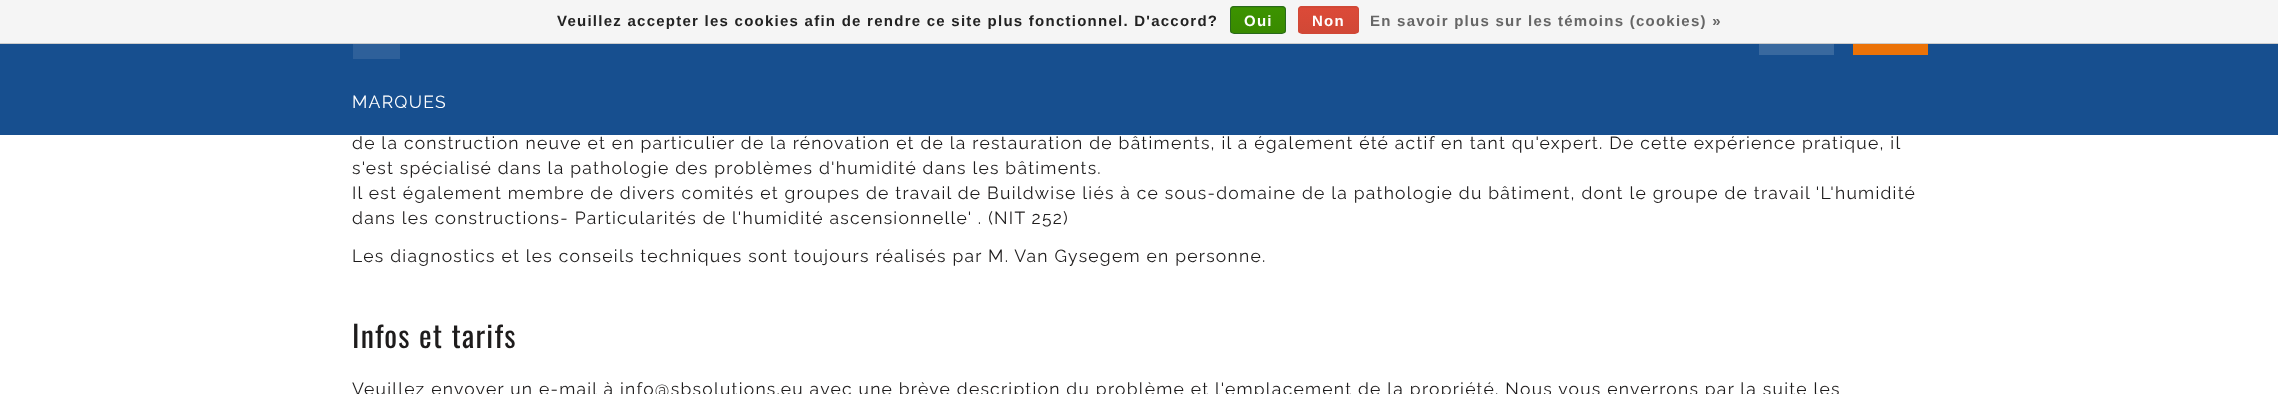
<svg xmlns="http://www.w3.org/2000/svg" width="2278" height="394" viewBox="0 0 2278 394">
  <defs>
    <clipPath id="clip1"><rect x="1230" y="6" width="56" height="28" rx="4"/></clipPath>
    <linearGradient id="g1" gradientUnits="userSpaceOnUse" x1="1258" y1="-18" x2="1258" y2="7.5"><stop offset="0" stop-color="#3c9300"/><stop offset="1" stop-color="#398a00"/></linearGradient>
    <linearGradient id="g2" gradientUnits="userSpaceOnUse" x1="1258" y1="7.5" x2="1258" y2="33"><stop offset="0" stop-color="#3c9300"/><stop offset="1" stop-color="#398a00"/></linearGradient>
    <clipPath id="clip2"><rect x="1298" y="6" width="61" height="28" rx="4"/></clipPath>
    <linearGradient id="g3" gradientUnits="userSpaceOnUse" x1="1328" y1="-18" x2="1328" y2="7.5"><stop offset="0" stop-color="#dc4a38"/><stop offset="1" stop-color="#d14836"/></linearGradient>
    <linearGradient id="g4" gradientUnits="userSpaceOnUse" x1="1328" y1="7.5" x2="1328" y2="33"><stop offset="0" stop-color="#dc4a38"/><stop offset="1" stop-color="#d14836"/></linearGradient>
  </defs>
  <rect width="100%" height="100%" fill="#fff"/>
  <path d="M0 0h2278v43H0z" fill="#f5f5f5"/>
  <path d="M0 43h2278v1H0z" fill="#ccc"/>
  <g clip-path="url(#clip1)">
    <path d="M1230 6h56v2H1230z" fill="url(#g1)"/>
    <path d="M1230 8h56v25H1230z" fill="url(#g2)"/>
  </g>
  <rect x="1230.5" y="6.5" width="55" height="27" rx="3.5" fill="none" stroke="#29691d"/>
  <g clip-path="url(#clip2)">
    <path d="M1298 6h61v2H1298z" fill="url(#g3)"/>
    <path d="M1298 8h61v25H1298z" fill="url(#g4)"/>
  </g>
  <rect x="1298.5" y="6.5" width="60" height="27" rx="3.5" fill="none" stroke="#d14836"/>
  <path d="M0 44h2278v91H0z" fill="#174f8f"/>
  <path d="M1759 44h75v11H1759z" fill="#39699f"/>
  <path d="M1853 44h75v11H1853z" fill="#eb7207"/>
  <path d="M353 44h47v15H353z" fill="#2e609a"/>
  <text x="557" y="26" font-family="Liberation Sans" font-size="15" font-weight="bold" letter-spacing="1.25" fill="#222">Veuillez accepter les cookies afin de rendre ce site plus fonctionnel. D'accord?</text>
  <g font-family="Liberation Sans" font-size="15" font-weight="bold" letter-spacing="1.25" fill="#fff">
    <text x="1244" y="26">Oui</text>
    <text x="1312" y="26">Non</text>
  </g>
  <text x="1370" y="26" font-family="Liberation Sans" font-size="15" font-weight="bold" letter-spacing="1.25" fill="#666">En savoir plus sur les témoins (cookies) »</text>
  <text x="352" y="108" font-family="Raleway" font-size="17.5" letter-spacing="1.25" fill="#fff">MARQUES</text>
  <g font-family="Raleway" font-size="17.5" letter-spacing="1.25" fill="#1e1c1c">
    <text x="352" y="149">de la construction neuve et en particulier de la rénovation et de la restauration de bâtiments, il a également été actif en tant qu'expert. De cette expérience pratique, il</text>
    <text x="352" y="174">s'est spécialisé dans la pathologie des problèmes d'humidité dans les bâtiments.</text>
    <text x="352" y="199">Il est également membre de divers comités et groupes de travail de Buildwise liés à ce sous-domaine de la pathologie du bâtiment, dont le groupe de travail 'L'humidité</text>
    <text x="352" y="224">dans les constructions- Particularités de l'humidité ascensionnelle' . (NIT 252)</text>
    <text x="352" y="262">Les diagnostics et les conseils techniques sont toujours réalisés par M. Van Gysegem en personne.</text>
  </g>
  <text x="352" y="348" font-family="Oswald" font-size="30" letter-spacing="1.25" fill="#1e1c1c">Infos et tarifs</text>
  <text x="352" y="395" font-family="Raleway" font-size="17.5" letter-spacing="1.25" fill="#1e1c1c">Veuillez envoyer un e-mail à info@sbsolutions.eu avec une brève description du problème et l'emplacement de la propriété. Nous vous enverrons par la suite les</text>
</svg>
